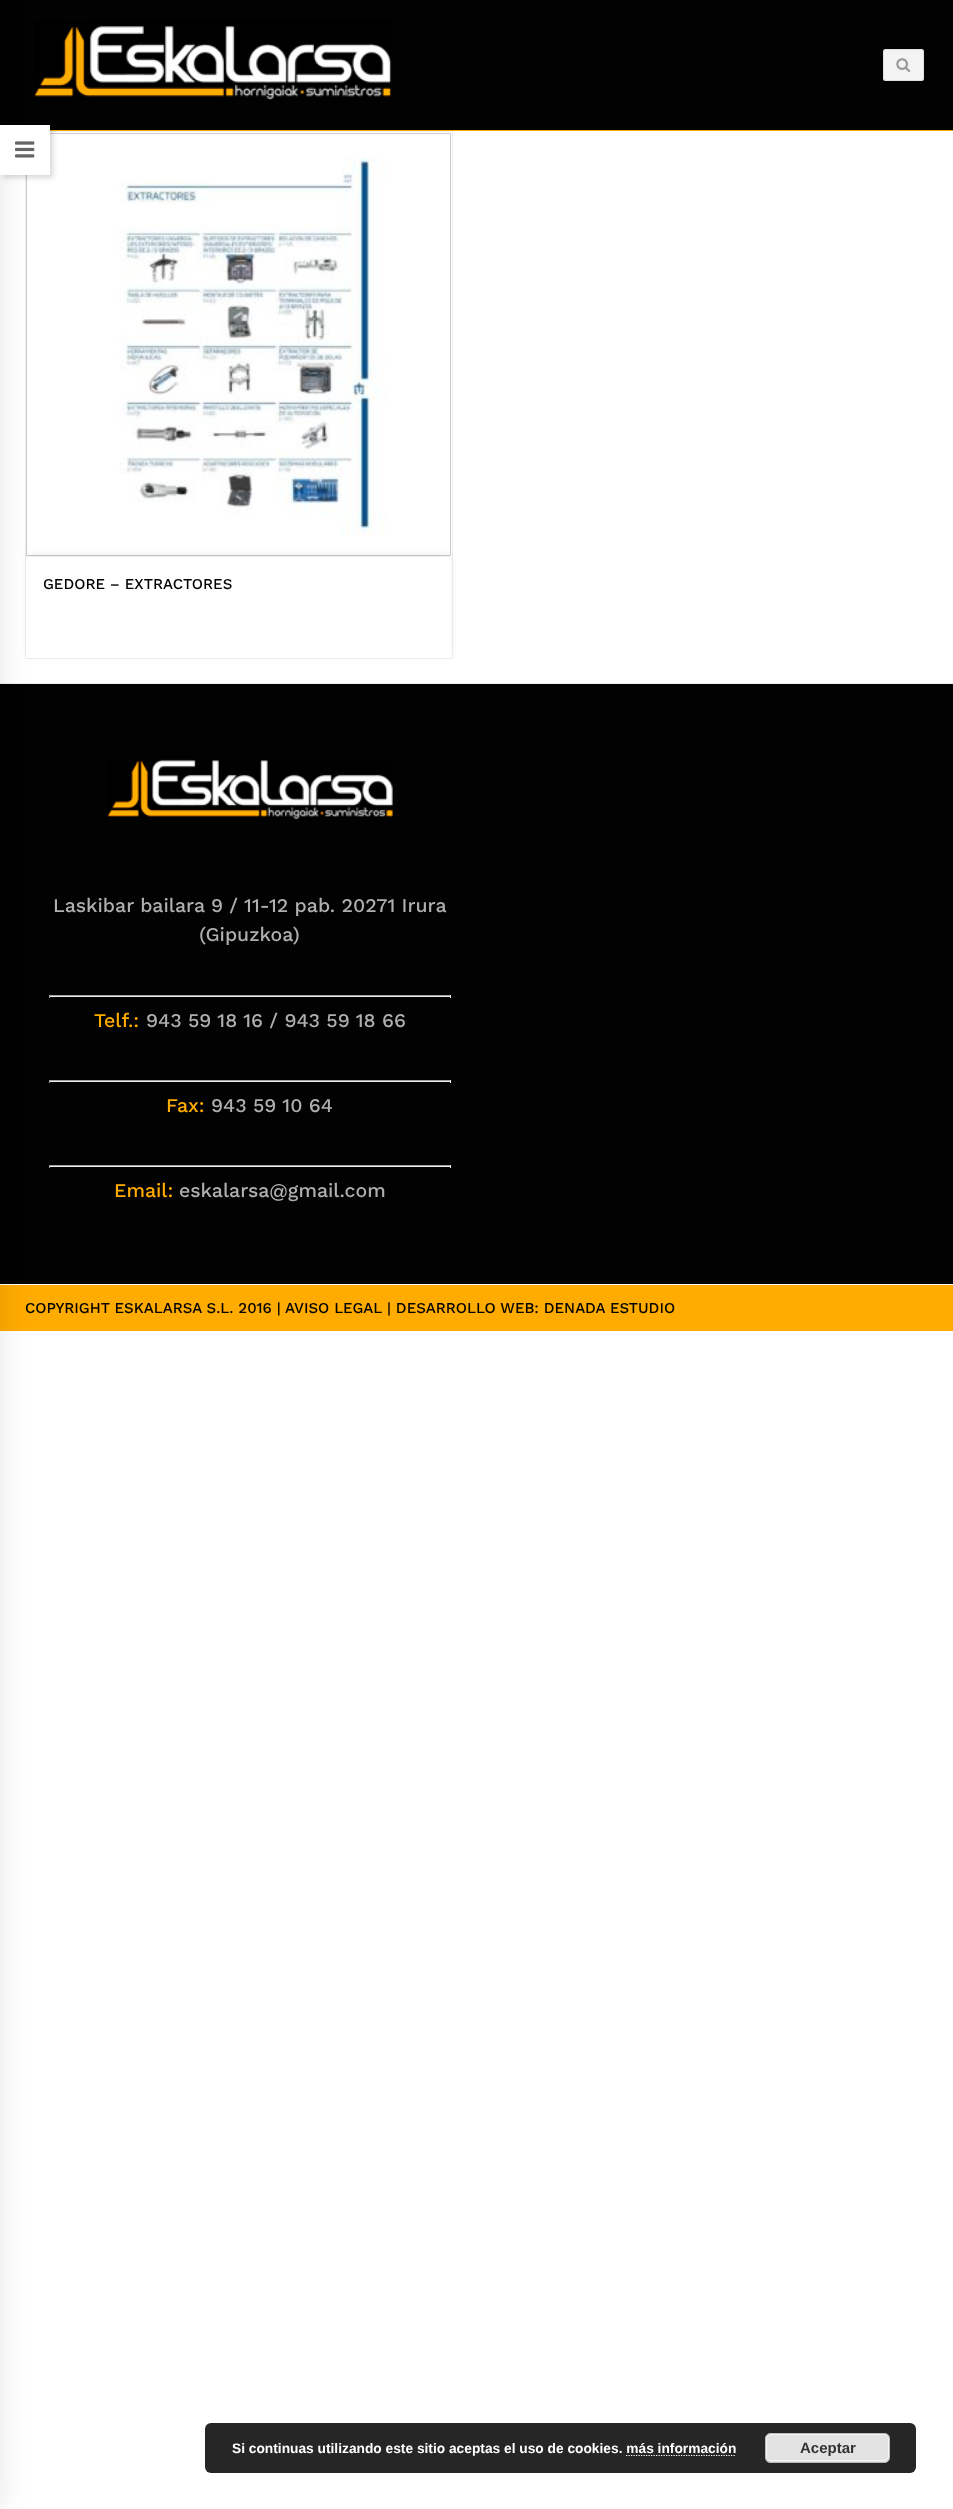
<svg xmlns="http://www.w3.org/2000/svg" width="953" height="2509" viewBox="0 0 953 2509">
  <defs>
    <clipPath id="clip1"><path d="M26 556h425v102H26z"/></clipPath>
  </defs>
  <rect width="100%" height="100%" fill="#fff"/>
  <path d="M0 0h953v130H0z" fill="#020202"/>
  <path d="M50 130h903v1H50z" fill="#f2a900"/>
  <image x="34" y="20" width="358" height="80" href="img/1.png"/>
  <rect x="883" y="49" width="41" height="32" rx="2.5" fill="#f3f3f3"/>
  <rect x="883.5" y="49.5" width="40" height="31" rx="2" fill="none" stroke="#00000012"/>
  <image x="896" y="58" width="15" height="15" href="img/2.png"/>
  <path d="M25.5 131.5h427v527H25.5z" fill="none" stroke="#eee"/>
  <path d="M26.5 133.5h424v422H26.5z" fill="none" stroke="#ccc"/>
  <path d="M29 556h420v97H29z" fill="#0000001a" filter="blur(4px)"/>
  <path d="M26 557h425v101H26z" fill="#fff"/>
  <g clip-path="url(#clip1)">
    <path d="M25.5 556.5h427v107H25.5z" fill="none" stroke="#eee"/>
  </g>
  <path d="M0 684h953v600H0z" fill="#020202"/>
  <path d="M0 683h953v1H0z" fill="#eee"/>
  <path d="M0 1285h953v46H0z" fill="#ffab00"/>
  <path d="M-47 0h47v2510H-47z" fill="#0000001a" filter="blur(15.5px)"/>
  <path d="M3 128h50v50H3z" fill="#00000026" filter="blur(2.5px)"/>
  <path d="M0 125h50v50H0z" fill="#fff"/>
  <image x="15" y="141" width="20" height="17" href="img/3.png"/>
  <image x="119" y="157" width="267" height="380" href="img/4.png"/>
  <image x="107" y="759" width="286" height="60" href="img/5.png"/>
  <path d="M49 995h402v1H49z" fill="#9f9f9f"/>
  <path d="M450 995h1v3H450z" fill="#eee"/>
  <path d="M49 996h402v1H49z" fill="#eee"/>
  <path d="M49 995h1v3H49z" fill="#9f9f9f"/>
  <path d="M49 1080h402v1H49z" fill="#9f9f9f"/>
  <path d="M450 1080h1v3H450z" fill="#eee"/>
  <path d="M49 1081h402v1H49z" fill="#eee"/>
  <path d="M49 1080h1v3H49z" fill="#9f9f9f"/>
  <path d="M49 1165h402v1H49z" fill="#9f9f9f"/>
  <path d="M450 1165h1v3H450z" fill="#eee"/>
  <path d="M49 1166h402v1H49z" fill="#eee"/>
  <path d="M49 1165h1v3H49z" fill="#9f9f9f"/>
  <rect x="205" y="2423" width="711" height="50" rx="6" fill="#262626"/>
  <rect x="765" y="2433" width="125" height="30" rx="6" fill="#e3e3e3"/>
  <rect x="766.5" y="2434.5" width="122" height="26" rx="4.5" fill="none" stroke="#f6f6f6"/>
  <rect x="765.5" y="2433.5" width="124" height="29" rx="5.5" fill="none" stroke="#bbb"/>
  <path d="M626 2455.5H736" fill="none" stroke="#fff" stroke-width="1.2" stroke-dasharray="1.25 1.25"/>
  <text x="43" y="589" font-family="Work Sans" font-size="15" font-weight="500" fill="#020202">GEDORE – EXTRACTORES</text>
  <g font-family="Work Sans" font-size="19.5" font-weight="500" fill="#afafaf">
    <text x="53" y="912">Laskibar bailara 9 / 11-12 pab. 20271 Irura</text>
    <text x="199" y="941">(Gipuzkoa)</text>
  </g>
  <text x="94" y="1027" font-family="Work Sans" font-size="19.5" font-weight="500" fill="#ffab00">Telf.:</text>
  <text x="146" y="1027" font-family="Work Sans" font-size="19.5" font-weight="500" fill="#afafaf">943 59 18 16 / 943 59 18 66</text>
  <text x="166" y="1112" font-family="Work Sans" font-size="19.5" font-weight="500" fill="#ffab00">Fax:</text>
  <text x="211" y="1112" font-family="Work Sans" font-size="19.5" font-weight="500" fill="#afafaf">943 59 10 64</text>
  <text x="114" y="1197" font-family="Work Sans" font-size="19.5" font-weight="500" fill="#ffab00">Email:</text>
  <text x="179" y="1197" font-family="Work Sans" font-size="19.5" font-weight="500" fill="#afafaf">eskalarsa@gmail.com</text>
  <g font-family="Work Sans" font-size="15" font-weight="500" fill="#020202">
    <text x="25" y="1313">COPYRIGHT ESKALARSA S.L. 2016 |</text>
    <text x="285" y="1313">AVISO LEGAL</text>
    <text x="387" y="1313">| DESARROLLO WEB: DENADA ESTUDIO</text>
  </g>
  <text x="232" y="2453" font-family="Liberation Sans" font-size="13.75" font-weight="bold" fill="#fff">Si continuas utilizando este sitio aceptas el uso de cookies. más información</text>
  <text x="800" y="2453" font-family="Liberation Sans" font-size="15" font-weight="bold" fill="#333">Aceptar</text>
</svg>
